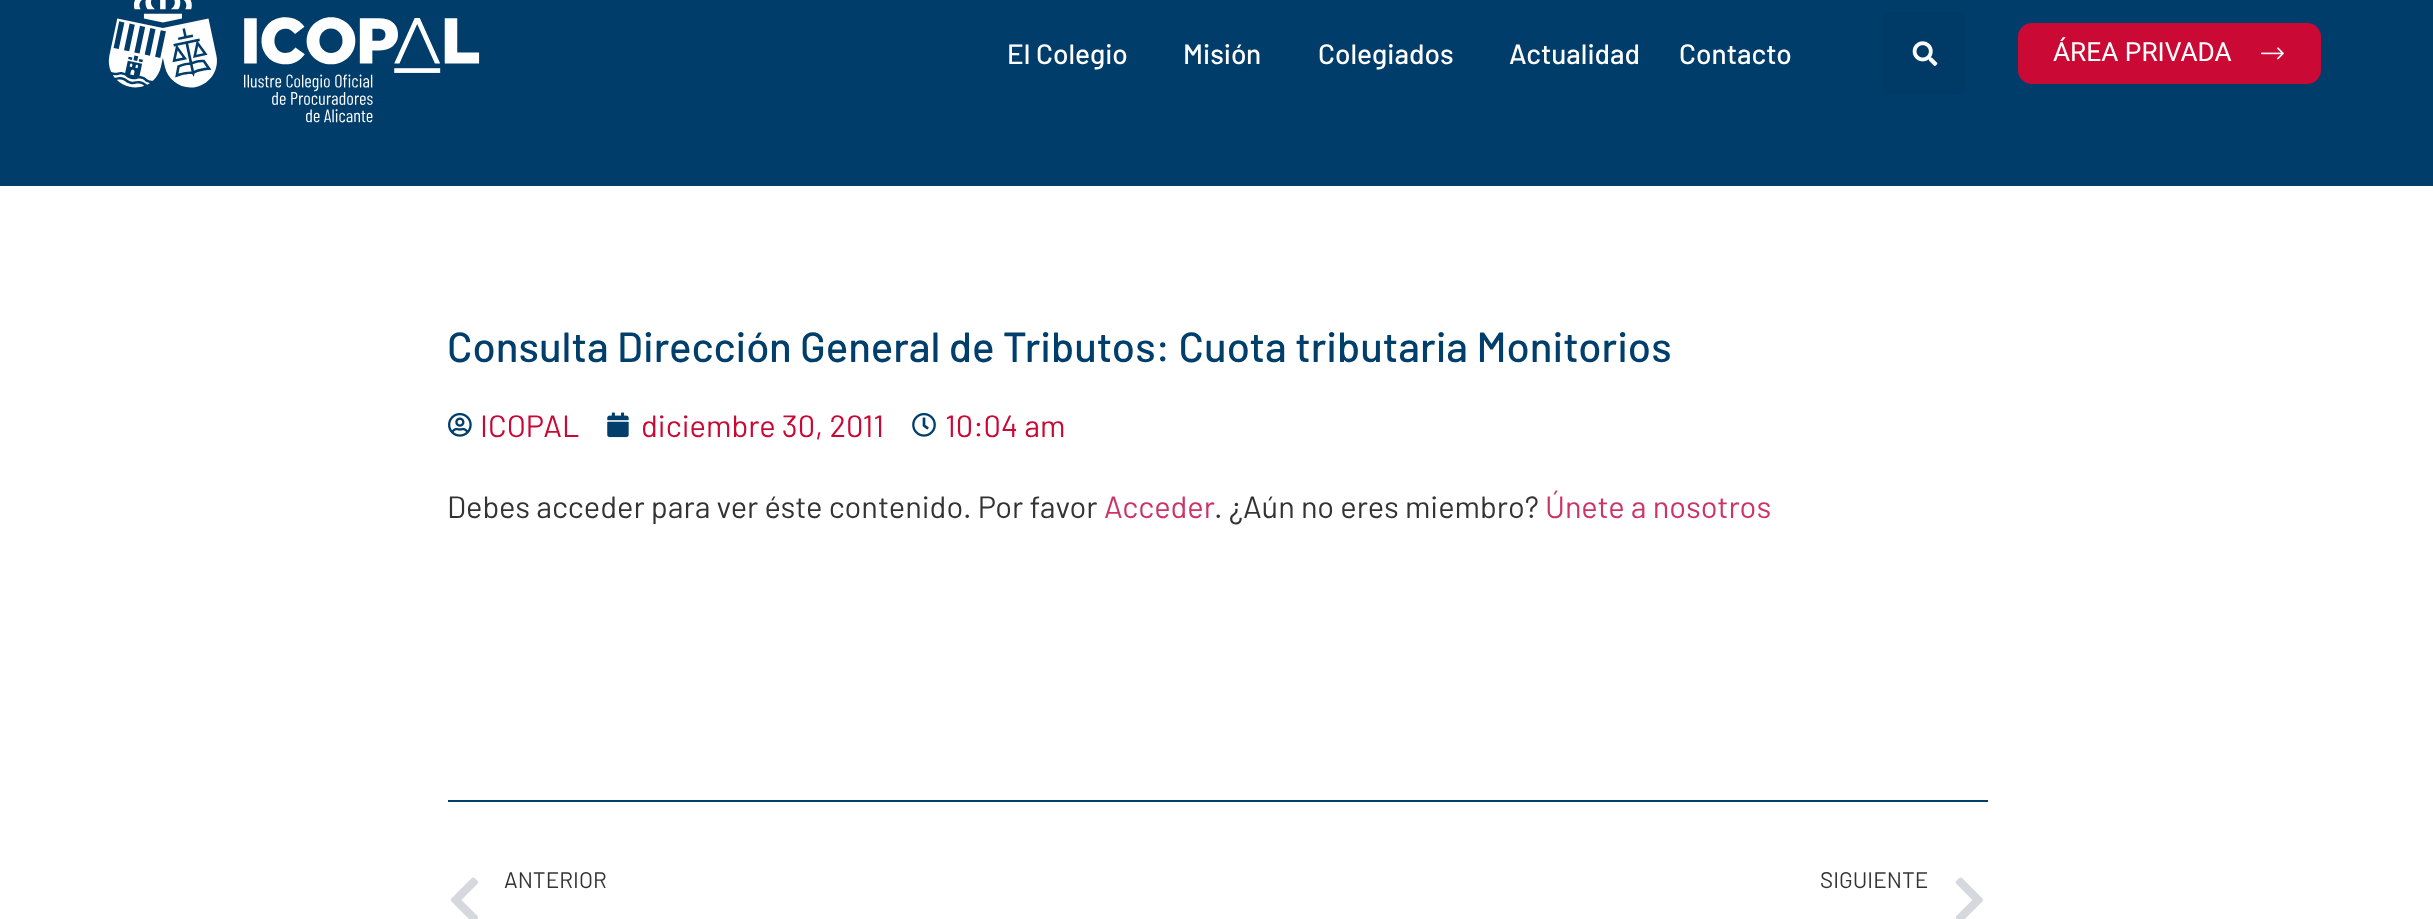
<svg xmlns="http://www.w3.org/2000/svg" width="2433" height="919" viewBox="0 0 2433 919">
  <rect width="100%" height="100%" fill="#fff"/>
  <path d="M0 0h2433v186H0z" fill="#003d6b"/>
  <image x="108" y="0" width="372" height="123" href="img/1.png"/>
  <rect x="1883" y="12" width="82" height="83" rx="5" fill="#003a66"/>
  <image x="1912" y="41" width="26" height="25" href="img/2.png"/>
  <rect x="2018" y="23" width="303" height="61" rx="14" fill="#cb0935"/>
  <image x="2261" y="47" width="23" height="13" href="img/3.png"/>
  <image x="448" y="412" width="24" height="25" href="img/4.png"/>
  <image x="607" y="412" width="22" height="26" href="img/5.png"/>
  <image x="912" y="413" width="24" height="24" href="img/6.png"/>
  <path d="M448 800h1540v2H448z" fill="#003e6c"/>
  <image x="450" y="877" width="28" height="42" href="img/7.png"/>
  <image x="1955" y="877" width="28" height="42" href="img/8.png"/>
  <g font-family="Barlow" font-size="28" font-weight="500" fill="#fff">
    <text x="1007" y="64">El Colegio</text>
    <text x="1183" y="64">Misión</text>
    <text x="1318" y="64">Colegiados</text>
    <text x="1509" y="64">Actualidad</text>
    <text x="1679" y="64">Contacto</text>
  </g>
  <text x="2053" y="61" font-family="Roboto" font-size="26.25" fill="#fff">ÁREA PRIVADA</text>
  <text x="447" y="362" font-family="Barlow" font-size="42" font-weight="500" fill="#003e6c">Consulta Dirección General de Tributos: Cuota tributaria Monitorios</text>
  <g font-family="Barlow" font-size="30.8" fill="#ca0835">
    <text x="480" y="437">ICOPAL</text>
    <text x="641" y="437">diciembre 30, 2011</text>
    <text x="945" y="437">10:04 am</text>
  </g>
  <text x="447" y="518" font-family="Barlow" font-size="30.8" fill="#333">Debes acceder para ver éste contenido. Por favor</text>
  <text x="1104" y="518" font-family="Barlow" font-size="30.8" fill="#c36">Acceder</text>
  <text x="1214" y="518" font-family="Barlow" font-size="30.8" fill="#333">. ¿Aún no eres miembro?</text>
  <text x="1545" y="518" font-family="Barlow" font-size="30.8" fill="#c36">Únete a nosotros</text>
  <g font-family="Barlow" font-size="22.5" fill="#333">
    <text x="504" y="888">ANTERIOR</text>
    <text x="1820" y="888">SIGUIENTE</text>
  </g>
</svg>
